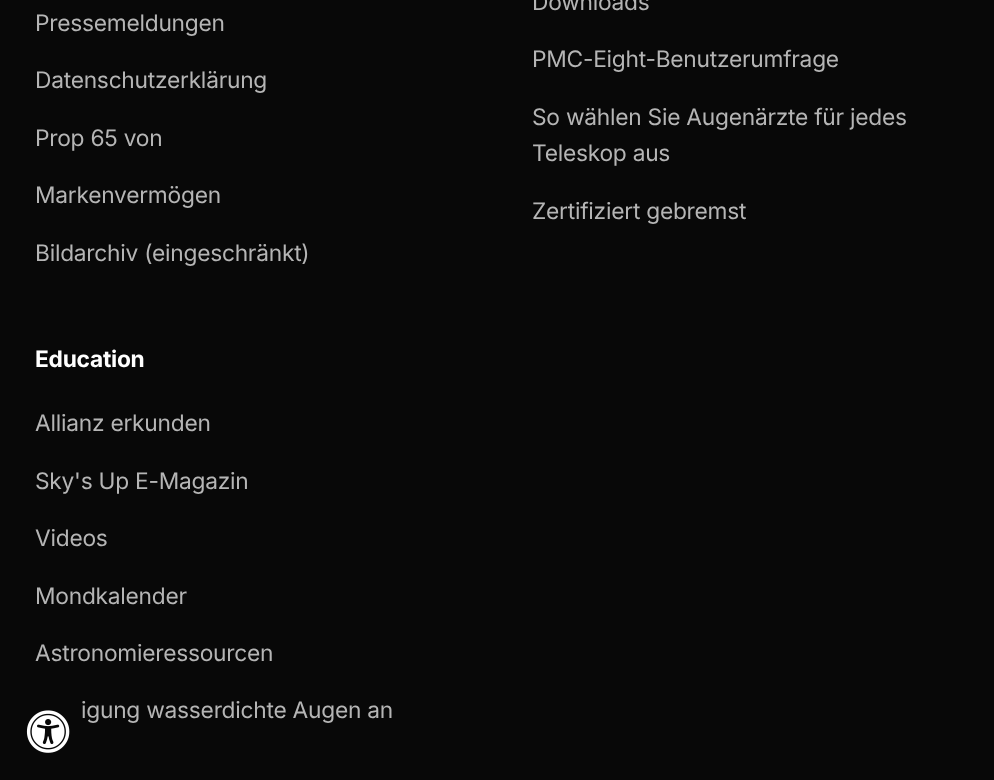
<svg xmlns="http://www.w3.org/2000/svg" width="994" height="780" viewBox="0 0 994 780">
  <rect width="100%" height="100%" fill="#080808"/>
  <image x="26" y="710" width="44" height="43" href="img/1.png"/>
  <g font-family="Inter" font-size="22.75" letter-spacing="-0.25" fill="#b5b5b5">
    <text x="35" y="31">Pressemeldungen</text>
    <text x="35" y="88">Datenschutzerklärung</text>
    <text x="35" y="146">Prop 65 von</text>
    <text x="35" y="203">Markenvermögen</text>
    <text x="35" y="261">Bildarchiv (eingeschränkt)</text>
    <text x="532" y="10">Downloads</text>
    <text x="532" y="67">PMC-Eight-Benutzerumfrage</text>
    <text x="532" y="125">So wählen Sie Augenärzte für jedes</text>
    <text x="532" y="161">Teleskop aus</text>
    <text x="532" y="219">Zertifiziert gebremst</text>
  </g>
  <text x="35" y="367" font-family="Inter" font-size="22.75" font-weight="bold" letter-spacing="-0.25" fill="#fff">Education</text>
  <g font-family="Inter" font-size="22.75" letter-spacing="-0.25" fill="#b5b5b5">
    <text x="35" y="431">Allianz erkunden</text>
    <text x="35" y="489">Sky's Up E-Magazin</text>
    <text x="35" y="546">Videos</text>
    <text x="35" y="604">Mondkalender</text>
    <text x="35" y="661">Astronomieressourcen</text>
    <text x="81" y="718">igung wasserdichte Augen an</text>
  </g>
</svg>
